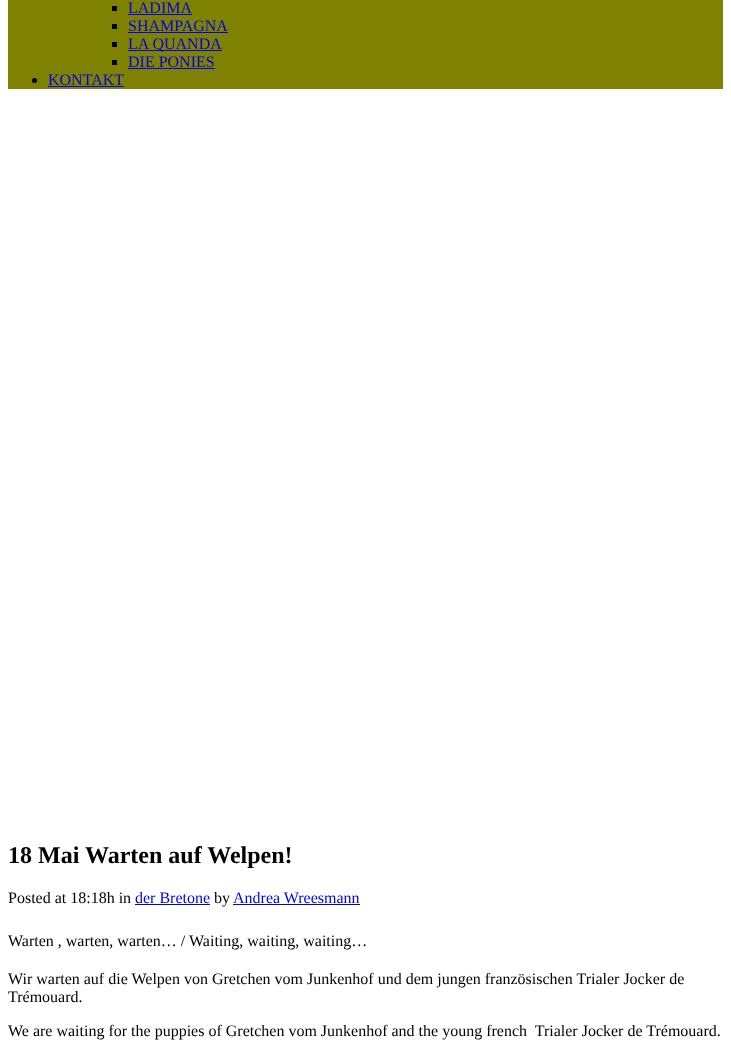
<svg xmlns="http://www.w3.org/2000/svg" width="731" height="1062" viewBox="0 0 731 1062">
  <rect width="100%" height="100%" fill="#fff"/>
  <path d="M8 0h715v89H8z" fill="#7f8200"/>
  <path d="M112 6h5v5H112z" fill="#000"/>
  <path d="M128 14h64v1H128z" fill="#00e"/>
  <path d="M112 24h5v5H112z" fill="#000"/>
  <path d="M128 32h100v1H128z" fill="#00e"/>
  <path d="M112 42h5v5H112z" fill="#000"/>
  <path d="M128 50h94v1H128z" fill="#00e"/>
  <path d="M112 60h5v5H112z" fill="#000"/>
  <path d="M128 68h87v1H128z" fill="#00e"/>
  <circle cx="34.5" cy="80.5" r="2.5" fill="#000"/>
  <path d="M48 86h76v1H48z" fill="#00e"/>
  <path d="M135 904h75v1H135z" fill="#00e"/>
  <path d="M233 904h127v1H233z" fill="#00e"/>
  <g font-family="Liberation Serif" font-size="16" fill="#00e">
    <text x="128" y="13">LADIMA</text>
    <text x="128" y="31">SHAMPAGNA</text>
    <text x="128" y="49">LA QUANDA</text>
    <text x="128" y="67">DIE PONIES</text>
    <text x="48" y="85">KONTAKT</text>
  </g>
  <g font-family="Liberation Serif" font-size="24" font-weight="bold" fill="#000">
    <text x="8" y="863">18 Mai</text>
    <text x="85" y="863">Warten auf Welpen!</text>
  </g>
  <text x="8" y="903" font-family="Liberation Serif" font-size="16" fill="#000">Posted at 18:18h in</text>
  <text x="135" y="903" font-family="Liberation Serif" font-size="16" fill="#00e">der Bretone</text>
  <text x="214" y="903" font-family="Liberation Serif" font-size="16" fill="#000">by</text>
  <text x="233" y="903" font-family="Liberation Serif" font-size="16" fill="#00e">Andrea Wreesmann</text>
  <g font-family="Liberation Serif" font-size="16" fill="#000">
    <text x="8" y="946">Warten , warten, warten… / Waiting, waiting, waiting…</text>
    <text x="8" y="984">Wir warten auf die Welpen von Gretchen vom Junkenhof und dem jungen französischen Trialer Jocker de</text>
    <text x="8" y="1002">Trémouard.</text>
    <text x="8" y="1036" xml:space="preserve">We are waiting for the puppies of Gretchen vom Junkenhof and the young french  Trialer Jocker de Trémouard.</text>
  </g>
</svg>
